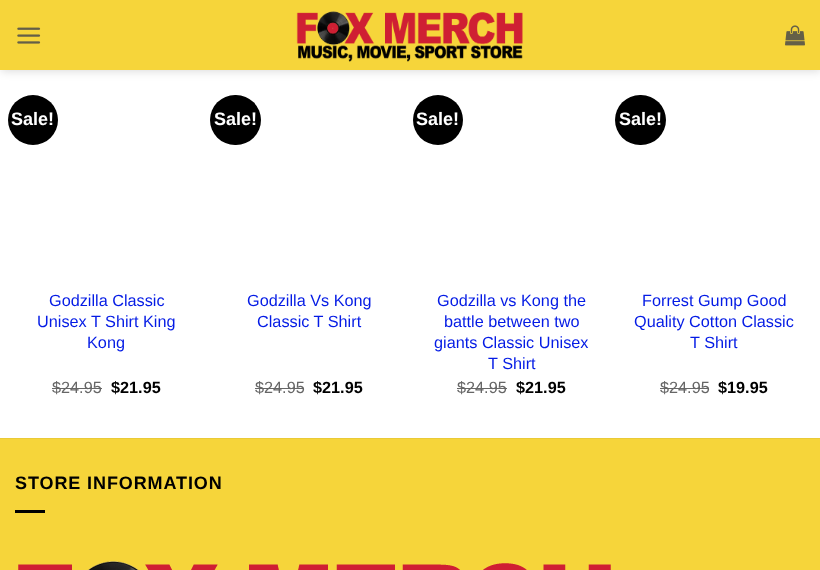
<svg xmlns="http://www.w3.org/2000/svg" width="820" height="570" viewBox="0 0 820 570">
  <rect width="100%" height="100%" fill="#fff"/>
  <path d="M1 1h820v70H1z" fill="#00000026" filter="blur(5px)"/>
  <path d="M0 0h820v70H0z" fill="#f6d53a"/>
  <image x="17" y="27" width="24" height="17" href="img/1.png"/>
  <image x="296" y="11" width="227" height="51" href="img/2.png"/>
  <image x="785" y="25" width="20" height="21" href="img/3.png"/>
  <circle cx="33" cy="120" r="25" fill="#000"/>
  <path d="M52 388h50v1H52z" fill="#666"/>
  <rect x="210" y="95" width="51" height="50" rx="25" fill="#000"/>
  <path d="M255 388h49v1H255z" fill="#666"/>
  <circle cx="438" cy="120" r="25" fill="#000"/>
  <path d="M457 388h50v1H457z" fill="#666"/>
  <rect x="615" y="95" width="51" height="50" rx="25" fill="#000"/>
  <path d="M660 388h49v1H660z" fill="#666"/>
  <path d="M0 439h820v131H0z" fill="#f6d53a"/>
  <path d="M0 438h820v1H0z" fill="#eaca37"/>
  <path d="M15 510h30v3H15z" fill="#000"/>
  <image x="18" y="561" width="593" height="9" href="img/4.png"/>
  <text x="11" y="125" font-family="Liberation Sans" font-size="18" font-weight="bold" fill="#fff">Sale!</text>
  <g font-family="Liberation Sans" font-size="16.25" fill="#041be5">
    <text x="49" y="306">Godzilla Classic</text>
    <text x="37" y="327">Unisex T Shirt King</text>
    <text x="87" y="348">Kong</text>
  </g>
  <text x="52" y="393" font-family="Liberation Sans" font-size="16.25" fill="#666">$24.95</text>
  <text x="111" y="393" font-family="Liberation Sans" font-size="16.25" font-weight="bold" fill="#000">$21.95</text>
  <text x="214" y="125" font-family="Liberation Sans" font-size="18" font-weight="bold" fill="#fff">Sale!</text>
  <g font-family="Liberation Sans" font-size="16.25" fill="#041be5">
    <text x="247" y="306">Godzilla Vs Kong</text>
    <text x="257" y="327">Classic T Shirt</text>
  </g>
  <text x="255" y="393" font-family="Liberation Sans" font-size="16.25" fill="#666">$24.95</text>
  <text x="313" y="393" font-family="Liberation Sans" font-size="16.25" font-weight="bold" fill="#000">$21.95</text>
  <text x="416" y="125" font-family="Liberation Sans" font-size="18" font-weight="bold" fill="#fff">Sale!</text>
  <g font-family="Liberation Sans" font-size="16.25" fill="#041be5">
    <text x="437" y="306">Godzilla vs Kong the</text>
    <text x="444" y="327">battle between two</text>
    <text x="434" y="348">giants Classic Unisex</text>
    <text x="488" y="369">T Shirt</text>
  </g>
  <text x="457" y="393" font-family="Liberation Sans" font-size="16.25" fill="#666">$24.95</text>
  <text x="516" y="393" font-family="Liberation Sans" font-size="16.25" font-weight="bold" fill="#000">$21.95</text>
  <text x="619" y="125" font-family="Liberation Sans" font-size="18" font-weight="bold" fill="#fff">Sale!</text>
  <g font-family="Liberation Sans" font-size="16.25" fill="#041be5">
    <text x="642" y="306">Forrest Gump Good</text>
    <text x="634" y="327">Quality Cotton Classic</text>
    <text x="690" y="348">T Shirt</text>
  </g>
  <text x="660" y="393" font-family="Liberation Sans" font-size="16.25" fill="#666">$24.95</text>
  <text x="718" y="393" font-family="Liberation Sans" font-size="16.25" font-weight="bold" fill="#000">$19.95</text>
  <text x="15" y="489" font-family="Liberation Sans" font-size="18" font-weight="bold" letter-spacing="0.9" fill="#000">STORE INFORMATION</text>
</svg>
